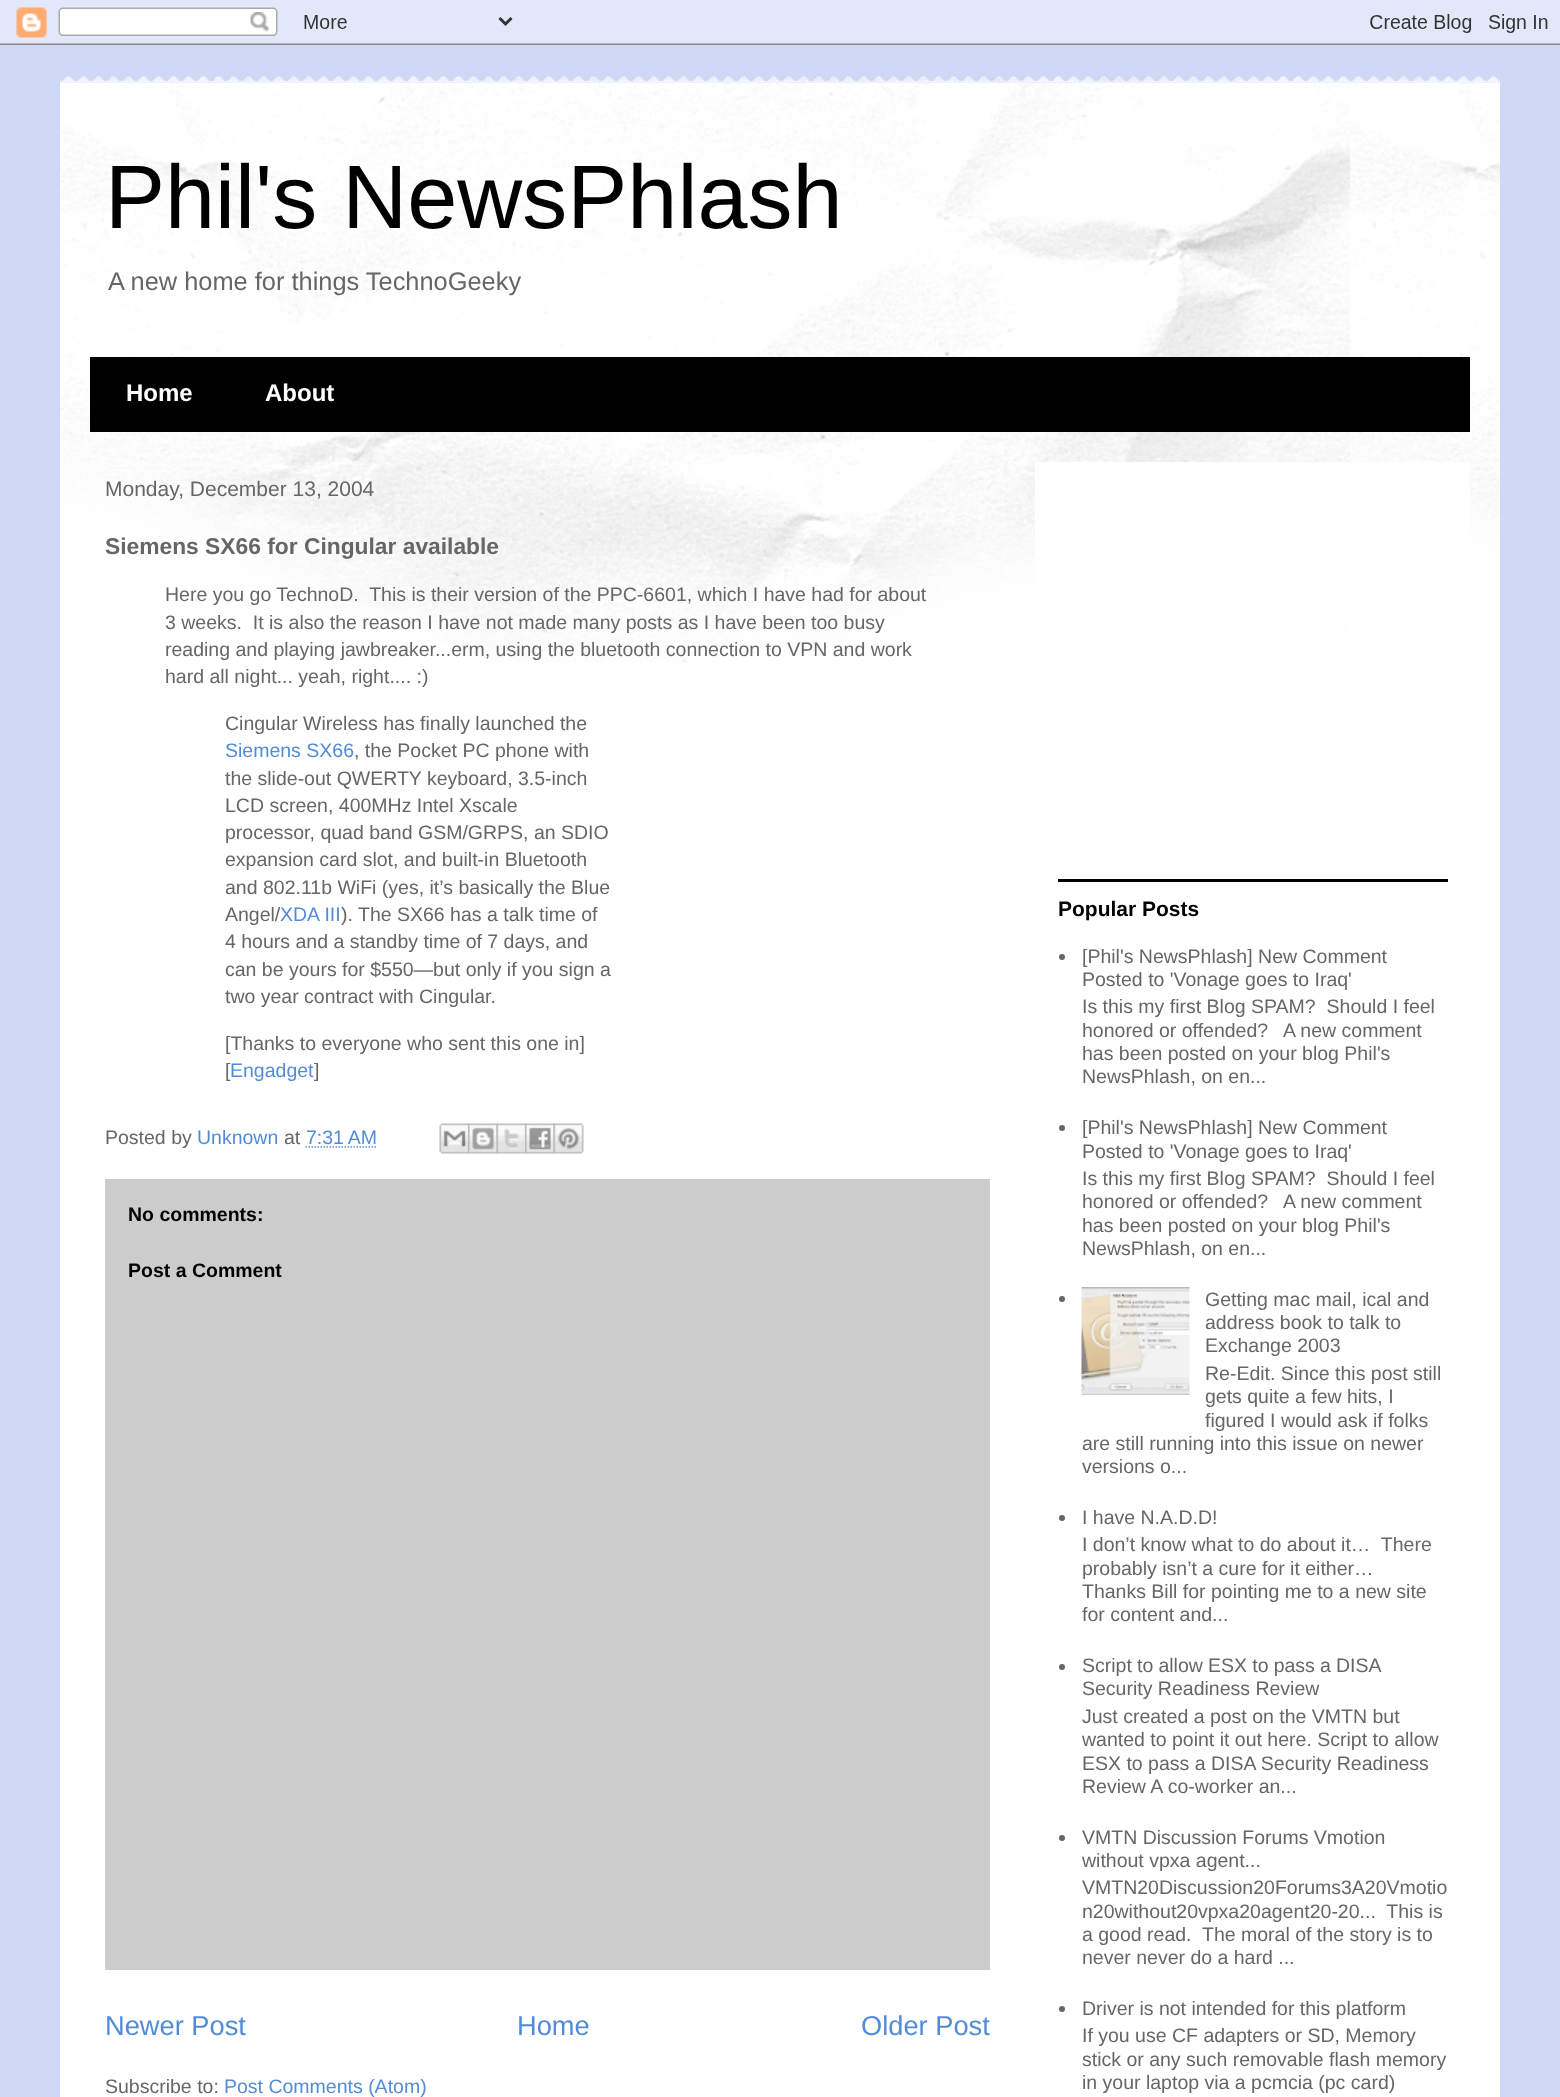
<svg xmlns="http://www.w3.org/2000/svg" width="1560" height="2097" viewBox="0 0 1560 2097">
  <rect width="100%" height="100%" fill="#cfd9f6"/>
  <image x="0" y="0" width="1560" height="45" href="img/1.png"/>
  <image x="60" y="76" width="1440" height="7" href="img/2.png"/>
  <path d="M60 83h1440v2014H60z" fill="#fff"/>
  <image x="60" y="82" width="1440" height="581" href="img/3.png"/>
  <path d="M90 357h1380v75H90z" fill="#000"/>
  <path d="M1035 462h435v162H1035z" fill="#fff"/>
  <path d="M305.5 1147H376.5" fill="none" stroke="#538cd6" stroke-width="1.5" stroke-dasharray="1.5 1.5"/>
  <image x="439" y="1123" width="31" height="31" href="img/4.png"/>
  <image x="468" y="1123" width="30" height="31" href="img/5.png"/>
  <image x="496" y="1123" width="31" height="31" href="img/6.png"/>
  <image x="525" y="1123" width="30" height="31" href="img/7.png"/>
  <image x="553" y="1123" width="31" height="31" href="img/8.png"/>
  <path d="M105 1179h885v791H105z" fill="#ccc"/>
  <path d="M1058 879h390v3H1058z" fill="#000"/>
  <circle cx="1062" cy="957" r="3" fill="#666"/>
  <circle cx="1062" cy="1128" r="3" fill="#666"/>
  <circle cx="1062" cy="1299" r="3" fill="#666"/>
  <image x="1081" y="1287" width="109" height="108" href="img/9.png"/>
  <circle cx="1062" cy="1518" r="3" fill="#666"/>
  <circle cx="1062" cy="1667" r="3" fill="#666"/>
  <circle cx="1062" cy="1838" r="3" fill="#666"/>
  <circle cx="1062" cy="2009" r="3" fill="#666"/>
  <text x="105" y="228" font-family="Liberation Sans" font-size="90" fill="#000">Phil's NewsPhlash</text>
  <text x="108" y="290" font-family="Liberation Sans" font-size="25.4" fill="#666">A new home for things TechnoGeeky</text>
  <g font-family="Liberation Sans" font-size="24" font-weight="bold" fill="#fff">
    <text x="126" y="401">Home</text>
    <text x="265" y="401">About</text>
  </g>
  <text x="105" y="496" font-family="Liberation Sans" font-size="21" fill="#666">Monday, December 13, 2004</text>
  <text x="105" y="554" font-family="Liberation Sans" font-size="22.8" font-weight="bold" fill="#666">Siemens SX66 for Cingular available</text>
  <g font-family="Liberation Sans" font-size="19.5" fill="#666">
    <text x="165" y="601" xml:space="preserve">Here you go TechnoD.  This is their version of the PPC-6601, which I have had for about</text>
    <text x="165" y="629" xml:space="preserve">3 weeks.  It is also the reason I have not made many posts as I have been too busy</text>
    <text x="165" y="656">reading and playing jawbreaker...erm, using the bluetooth connection to VPN and work</text>
    <text x="165" y="683">hard all night... yeah, right.... :)</text>
    <text x="225" y="730">Cingular Wireless has finally launched the</text>
  </g>
  <text x="225" y="757" font-family="Liberation Sans" font-size="19.5" fill="#538cd6">Siemens SX66</text>
  <g font-family="Liberation Sans" font-size="19.5" fill="#666">
    <text x="354" y="757">, the Pocket PC phone with</text>
    <text x="225" y="785">the slide-out QWERTY keyboard, 3.5-inch</text>
    <text x="225" y="812">LCD screen, 400MHz Intel Xscale</text>
    <text x="225" y="839">processor, quad band GSM/GRPS, an SDIO</text>
    <text x="225" y="866">expansion card slot, and built-in Bluetooth</text>
    <text x="225" y="894">and 802.11b WiFi (yes, it’s basically the Blue</text>
    <text x="225" y="921">Angel/</text>
  </g>
  <text x="280" y="921" font-family="Liberation Sans" font-size="19.5" fill="#538cd6">XDA III</text>
  <g font-family="Liberation Sans" font-size="19.5" fill="#666">
    <text x="341" y="921">). The SX66 has a talk time of</text>
    <text x="225" y="948">4 hours and a standby time of 7 days, and</text>
    <text x="225" y="976">can be yours for $550—but only if you sign a</text>
    <text x="225" y="1003">two year contract with Cingular.</text>
    <text x="225" y="1050">[Thanks to everyone who sent this one in]</text>
    <text x="225" y="1077">[</text>
  </g>
  <text x="230" y="1077" font-family="Liberation Sans" font-size="19.5" fill="#538cd6">Engadget</text>
  <g font-family="Liberation Sans" font-size="19.5" fill="#666">
    <text x="314" y="1077">]</text>
    <text x="105" y="1144">Posted by</text>
  </g>
  <text x="197" y="1144" font-family="Liberation Sans" font-size="19.5" fill="#538cd6">Unknown</text>
  <text x="284" y="1144" font-family="Liberation Sans" font-size="19.5" fill="#666">at</text>
  <text x="306" y="1144" font-family="Liberation Sans" font-size="19.5" fill="#538cd6">7:31 AM</text>
  <g font-family="Liberation Sans" font-size="19.5" font-weight="bold" fill="#000">
    <text x="128" y="1221">No comments:</text>
    <text x="128" y="1277">Post a Comment</text>
  </g>
  <g font-family="Liberation Sans" font-size="27.25" fill="#538cd6">
    <text x="105" y="2035">Newer Post</text>
    <text x="517" y="2035">Home</text>
    <text x="861" y="2035">Older Post</text>
  </g>
  <text x="105" y="2093" font-family="Liberation Sans" font-size="19.5" fill="#666">Subscribe to:</text>
  <text x="224" y="2093" font-family="Liberation Sans" font-size="19.5" fill="#538cd6">Post Comments (Atom)</text>
  <text x="1058" y="916" font-family="Liberation Sans" font-size="21" font-weight="bold" fill="#000">Popular Posts</text>
  <g font-family="Liberation Sans" font-size="19.5" fill="#666">
    <text x="1082" y="963">[Phil's NewsPhlash] New Comment</text>
    <text x="1082" y="986">Posted to 'Vonage goes to Iraq'</text>
    <text x="1082" y="1013" xml:space="preserve">Is this my first Blog SPAM?  Should I feel</text>
    <text x="1082" y="1037">honored or offended?</text>
    <text x="1283" y="1037">A new comment</text>
    <text x="1082" y="1060">has been posted on your blog Phil's</text>
    <text x="1082" y="1083">NewsPhlash, on en...</text>
    <text x="1082" y="1134">[Phil's NewsPhlash] New Comment</text>
    <text x="1082" y="1158">Posted to 'Vonage goes to Iraq'</text>
    <text x="1082" y="1185" xml:space="preserve">Is this my first Blog SPAM?  Should I feel</text>
    <text x="1082" y="1208">honored or offended?</text>
    <text x="1283" y="1208">A new comment</text>
    <text x="1082" y="1232">has been posted on your blog Phil's</text>
    <text x="1082" y="1255">NewsPhlash, on en...</text>
    <text x="1205" y="1306">Getting mac mail, ical and</text>
    <text x="1205" y="1329">address book to talk to</text>
    <text x="1205" y="1352">Exchange 2003</text>
    <text x="1205" y="1380">Re-Edit. Since this post still</text>
    <text x="1205" y="1403">gets quite a few hits, I</text>
    <text x="1205" y="1427">figured I would ask if folks</text>
    <text x="1082" y="1450">are still running into this issue on newer</text>
    <text x="1082" y="1473">versions o...</text>
    <text x="1082" y="1524">I have N.A.D.D!</text>
    <text x="1082" y="1551" xml:space="preserve">I don’t know what to do about it…  There</text>
    <text x="1082" y="1575">probably isn’t a cure for it either…</text>
    <text x="1082" y="1598">Thanks Bill for pointing me to a new site</text>
    <text x="1082" y="1621">for content and...</text>
    <text x="1082" y="1672" word-spacing="-0.25">Script to allow ESX to pass a DISA</text>
    <text x="1082" y="1695">Security Readiness Review</text>
    <text x="1082" y="1723">Just created a post on the VMTN but</text>
    <text x="1082" y="1746">wanted to point it out here. Script to allow</text>
    <text x="1082" y="1770">ESX to pass a DISA Security Readiness</text>
    <text x="1082" y="1793">Review A co-worker an...</text>
    <text x="1082" y="1844">VMTN Discussion Forums Vmotion</text>
    <text x="1082" y="1867">without vpxa agent...</text>
    <text x="1082" y="1894">VMTN20Discussion20Forums3A20Vmotio</text>
    <text x="1082" y="1918" xml:space="preserve">n20without20vpxa20agent20-20...  This is</text>
    <text x="1082" y="1941" xml:space="preserve">a good read.  The moral of the story is to</text>
    <text x="1082" y="1964">never never do a hard ...</text>
    <text x="1082" y="2015">Driver is not intended for this platform</text>
    <text x="1082" y="2042">If you use CF adapters or SD, Memory</text>
    <text x="1082" y="2066">stick or any such removable flash memory</text>
    <text x="1082" y="2089">in your laptop via a pcmcia (pc card)</text>
  </g>
</svg>
